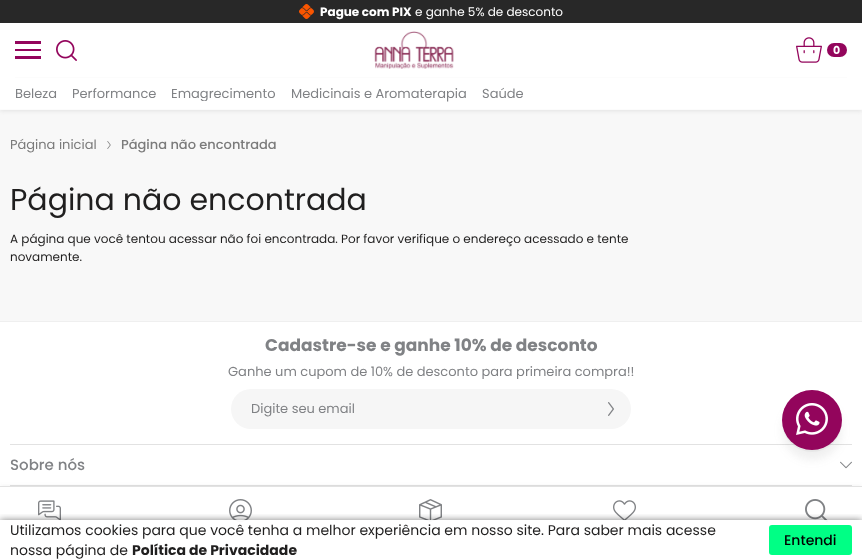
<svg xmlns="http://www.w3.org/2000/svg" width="862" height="560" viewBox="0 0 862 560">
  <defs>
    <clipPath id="clip1"><path d="M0 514h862v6H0z"/></clipPath>
    <clipPath id="clip2"><path d="M15 78h832v23H15z"/></clipPath>
    <clipPath id="clip3"><path d="M10 364h842v15H10z"/></clipPath>
  </defs>
  <rect width="100%" height="100%" fill="#f8f8f8"/>
  <path d="M0 0h862v23H0z" fill="#282828"/>
  <image x="299" y="4" width="15" height="15" href="img/1.png"/>
  <path d="M0 24h862v87H0z" fill="#52525221" filter="blur(2px)"/>
  <path d="M0 23h862v86H0z" fill="#fff"/>
  <path d="M0 109h862v1H0z" fill="#fcfcfc"/>
  <path d="M15 56h26v3H15z" fill="#93055c"/>
  <path d="M15 49h26v2H15z" fill="#93055c"/>
  <path d="M15 41h26v3H15z" fill="#93055c"/>
  <image x="56" y="40" width="21" height="21" href="img/2.png"/>
  <image x="374" y="31" width="80" height="38" href="img/3.png"/>
  <image x="796" y="37" width="26" height="26" href="img/4.png"/>
  <rect x="827" y="43" width="20" height="14" rx="7" fill="#93055c"/>
  <path d="M15 77h832v1H15z" fill="#fcfcfc"/>
  <image x="107" y="141" width="4" height="8" href="img/5.png"/>
  <path d="M0 321h862v1H0z" fill="#efefef"/>
  <path d="M0 322h862v164H0z" fill="#fff"/>
  <rect x="231" y="389" width="400" height="40" rx="20" fill="#f6f6f6"/>
  <image x="608" y="402" width="6" height="14" href="img/6.png"/>
  <path d="M10 444h842v1H10z" fill="#e2e2e2"/>
  <image x="840" y="461" width="12" height="8" href="img/7.png"/>
  <path d="M10 485h842v1H10z" fill="#e2e2e2"/>
  <rect x="782" y="400" width="60" height="60" rx="30" fill="#6767671a" filter="blur(4px)"/>
  <rect x="782" y="392" width="60" height="60" rx="30" fill="#0000000a" filter="blur(0.5px)"/>
  <circle cx="812" cy="420" r="30" fill="#93055c"/>
  <image x="796" y="403" width="32" height="32" href="img/8.png"/>
  <path d="M0 486h862v74H0z" fill="#52525214" filter="blur(2px)"/>
  <path d="M0 487h862v73H0z" fill="#fff"/>
  <path d="M0 486h862v1H0z" fill="#e2e2e2"/>
  <image x="38" y="500" width="23" height="21" href="img/9.png"/>
  <image x="229" y="499" width="23" height="23" href="img/10.png"/>
  <image x="419" y="499" width="23" height="23" href="img/11.png"/>
  <image x="613" y="500" width="23" height="21" href="img/12.png"/>
  <image x="805" y="499" width="23" height="23" href="img/13.png"/>
  <g clip-path="url(#clip1)">
    <path d="M0 520h862v40H0z" fill="#00000080" filter="blur(3.5px)"/>
  </g>
  <path d="M59 520h769v2H59z" fill="#fffffff2"/>
  <rect x="769" y="525" width="83" height="30" rx="3" fill="#00ff85"/>
  <text x="320" y="16" font-family="Poppins" font-size="12" font-weight="bold" fill="#fff">Pague com PIX</text>
  <text x="415" y="16" font-family="Poppins" font-size="12" fill="#fff">e ganhe 5% de desconto</text>
  <text x="833" y="54" font-family="Poppins" font-size="11" font-weight="bold" fill="#fff">0</text>
  <g font-family="Poppins" font-size="13" fill="#808285">
    <text x="15" y="98">Beleza</text>
    <text x="72" y="98">Performance</text>
  </g>
  <g clip-path="url(#clip2)">
    <text x="171" y="98" font-family="Poppins" font-size="13" fill="#808285">Emagrecimento</text>
  </g>
  <g font-family="Poppins" font-size="13" fill="#808285">
    <text x="291" y="98">Medicinais e Aromaterapia</text>
    <text x="482" y="98">Saúde</text>
  </g>
  <text x="10" y="149" font-family="Poppins" font-size="13" fill="#7b7b7b">Página inicial</text>
  <text x="121" y="149" font-family="Poppins" font-size="13" font-weight="500" fill="#7b7b7b">Página não encontrada</text>
  <text x="10" y="210" font-family="Poppins" font-size="30" fill="#201f1f">Página não encontrada</text>
  <g font-family="Poppins" font-size="12" fill="#201f1f">
    <text x="10" y="243">A página que você tentou acessar não foi encontrada. Por favor verifique o endereço acessado e tente</text>
    <text x="10" y="261">novamente.</text>
  </g>
  <text x="265" y="351" font-family="Poppins" font-size="17" font-weight="bold" fill="#808285">Cadastre-se e ganhe 10% de desconto</text>
  <g clip-path="url(#clip3)">
    <text x="228" y="376" font-family="Poppins" font-size="13" fill="#808285">Ganhe um cupom de 10% de desconto para primeira compra!!</text>
  </g>
  <text x="251" y="413" font-family="Poppins" font-size="13" fill="#808285">Digite seu email</text>
  <text x="10" y="470" font-family="Poppins" font-size="15" font-weight="500" fill="#808285">Sobre nós</text>
  <g font-family="Poppins" font-size="14" fill="#201f1f">
    <text x="10" y="535">Utilizamos cookies para que você tenha a melhor experiência em nosso site. Para saber mais acesse</text>
    <text x="10" y="555">nossa página de</text>
  </g>
  <text x="132" y="555" font-family="Poppins" font-size="14" font-weight="bold" fill="#201f1f">Política de Privacidade</text>
  <text x="784" y="545" font-family="Poppins" font-size="14" font-weight="500" fill="#000">Entendi</text>
</svg>
